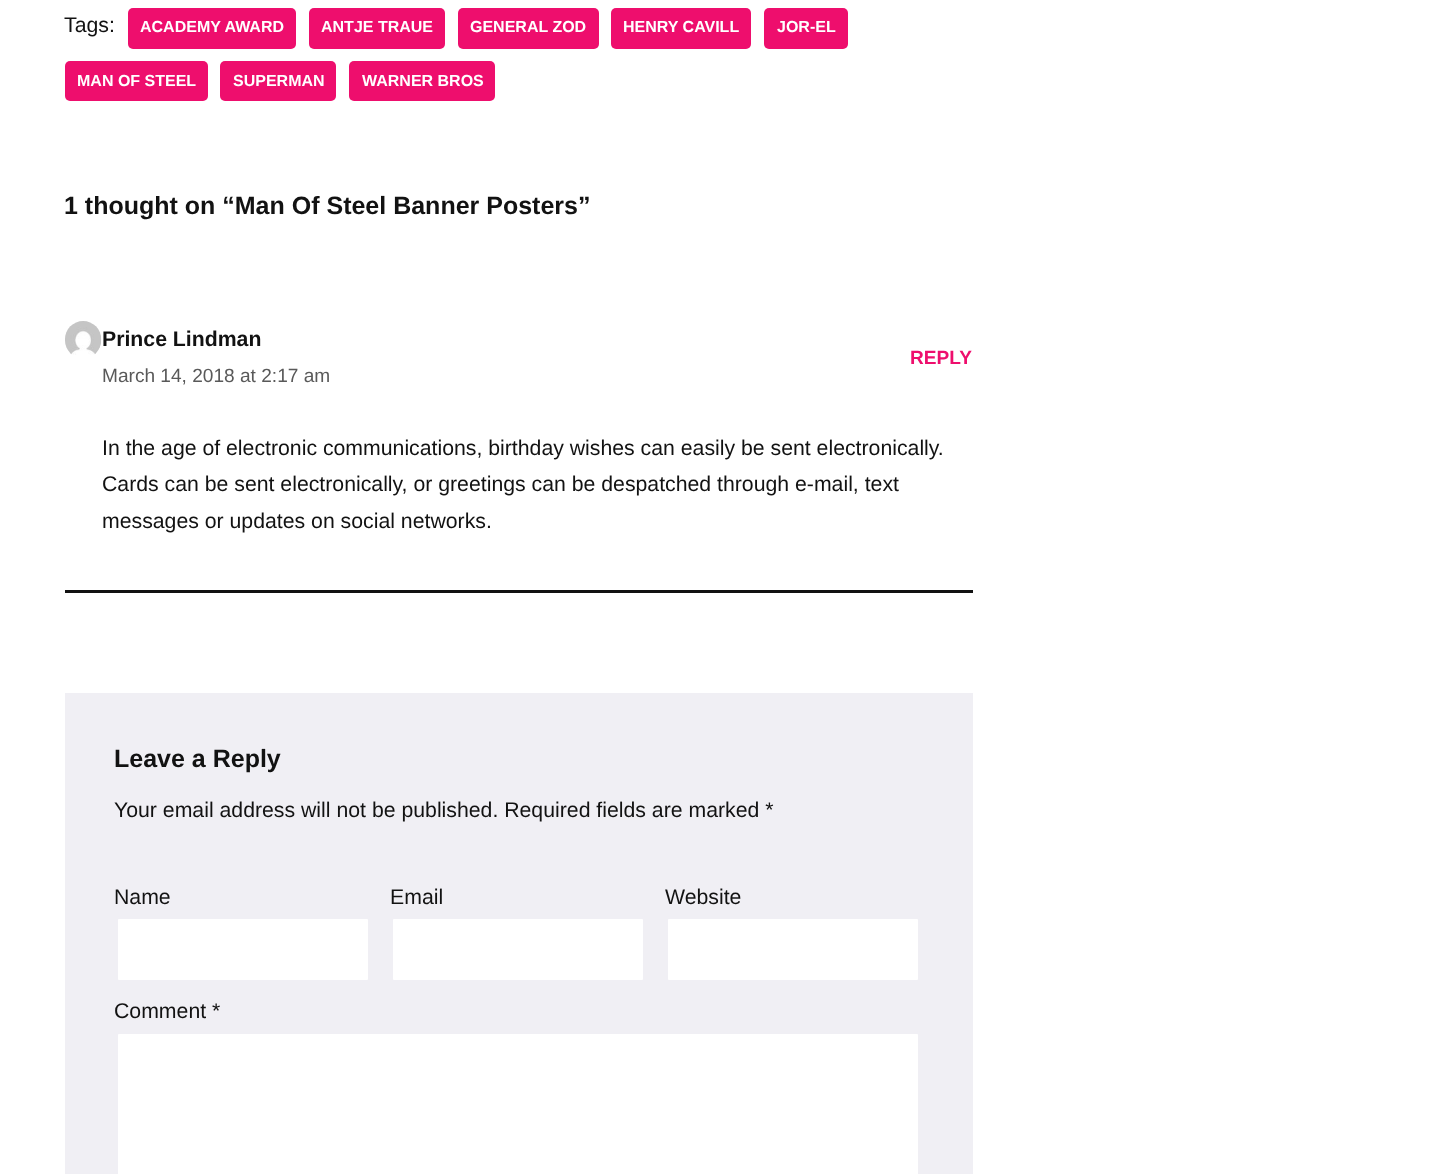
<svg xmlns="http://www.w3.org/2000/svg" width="1441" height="1174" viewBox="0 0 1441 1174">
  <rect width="100%" height="100%" fill="#fff"/>
  <rect x="128" y="8" width="168" height="41" rx="5" fill="#ee0e6d"/>
  <rect x="309" y="8" width="136" height="41" rx="5" fill="#ee0e6d"/>
  <rect x="458" y="8" width="141" height="41" rx="5" fill="#ee0e6d"/>
  <rect x="611" y="8" width="140" height="41" rx="5" fill="#ee0e6d"/>
  <rect x="764" y="8" width="84" height="41" rx="5" fill="#ee0e6d"/>
  <rect x="65" y="61" width="143" height="40" rx="5" fill="#ee0e6d"/>
  <rect x="220" y="61" width="116" height="40" rx="5" fill="#ee0e6d"/>
  <rect x="349" y="61" width="146" height="40" rx="5" fill="#ee0e6d"/>
  <path d="M65 590h908v3H65z" fill="#121212"/>
  <image x="65" y="321" width="37" height="34" href="img/1.png"/>
  <path d="M65 693h908v481H65z" fill="#f0eff4"/>
  <rect x="116.5" y="917.5" width="253" height="64" rx="2.5" fill="#fff" stroke="#f0eff4" stroke-width="3"/>
  <rect x="391.5" y="917.5" width="253" height="64" rx="2.5" fill="#fff" stroke="#f0eff4" stroke-width="3"/>
  <rect x="666.5" y="917.5" width="253" height="64" rx="2.5" fill="#fff" stroke="#f0eff4" stroke-width="3"/>
  <rect x="116.5" y="1032.5" width="803" height="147" rx="2.5" fill="#fff" stroke="#f0eff4" stroke-width="3"/>
  <text x="64" y="32" font-family="Liberation Sans" font-size="21.25" fill="#121212">Tags:</text>
  <g font-family="Liberation Sans" font-size="16" font-weight="bold" fill="#fff">
    <text x="140" y="32">ACADEMY AWARD</text>
    <text x="321" y="32">ANTJE TRAUE</text>
    <text x="470" y="32">GENERAL ZOD</text>
    <text x="623" y="32">HENRY CAVILL</text>
    <text x="777" y="32">JOR-EL</text>
    <text x="77" y="86">MAN OF STEEL</text>
    <text x="233" y="86">SUPERMAN</text>
    <text x="362" y="86">WARNER BROS</text>
  </g>
  <text x="64" y="214" font-family="Liberation Sans" font-size="25" font-weight="bold" fill="#121212">1 thought on “Man Of Steel Banner Posters”</text>
  <text x="102" y="346" font-family="Liberation Sans" font-size="21.25" font-weight="bold" fill="#121212">Prince Lindman</text>
  <text x="102" y="382" font-family="Liberation Sans" font-size="19.1" fill="#595959">March 14, 2018 at 2:17 am</text>
  <text x="910" y="364" font-family="Liberation Sans" font-size="19.1" font-weight="bold" fill="#ee0e6d">REPLY</text>
  <g font-family="Liberation Sans" font-size="21.25" fill="#121212">
    <text x="102" y="455">In the age of electronic communications, birthday wishes can easily be sent electronically.</text>
    <text x="102" y="491">Cards can be sent electronically, or greetings can be despatched through e-mail, text</text>
    <text x="102" y="528">messages or updates on social networks.</text>
  </g>
  <text x="114" y="767" font-family="Liberation Sans" font-size="25" font-weight="bold" fill="#121212">Leave a Reply</text>
  <g font-family="Liberation Sans" font-size="21.25" fill="#121212">
    <text x="114" y="817">Your email address will not be published. Required fields are marked *</text>
    <text x="114" y="904">Name</text>
    <text x="390" y="904">Email</text>
    <text x="665" y="904">Website</text>
    <text x="114" y="1018">Comment *</text>
  </g>
</svg>
